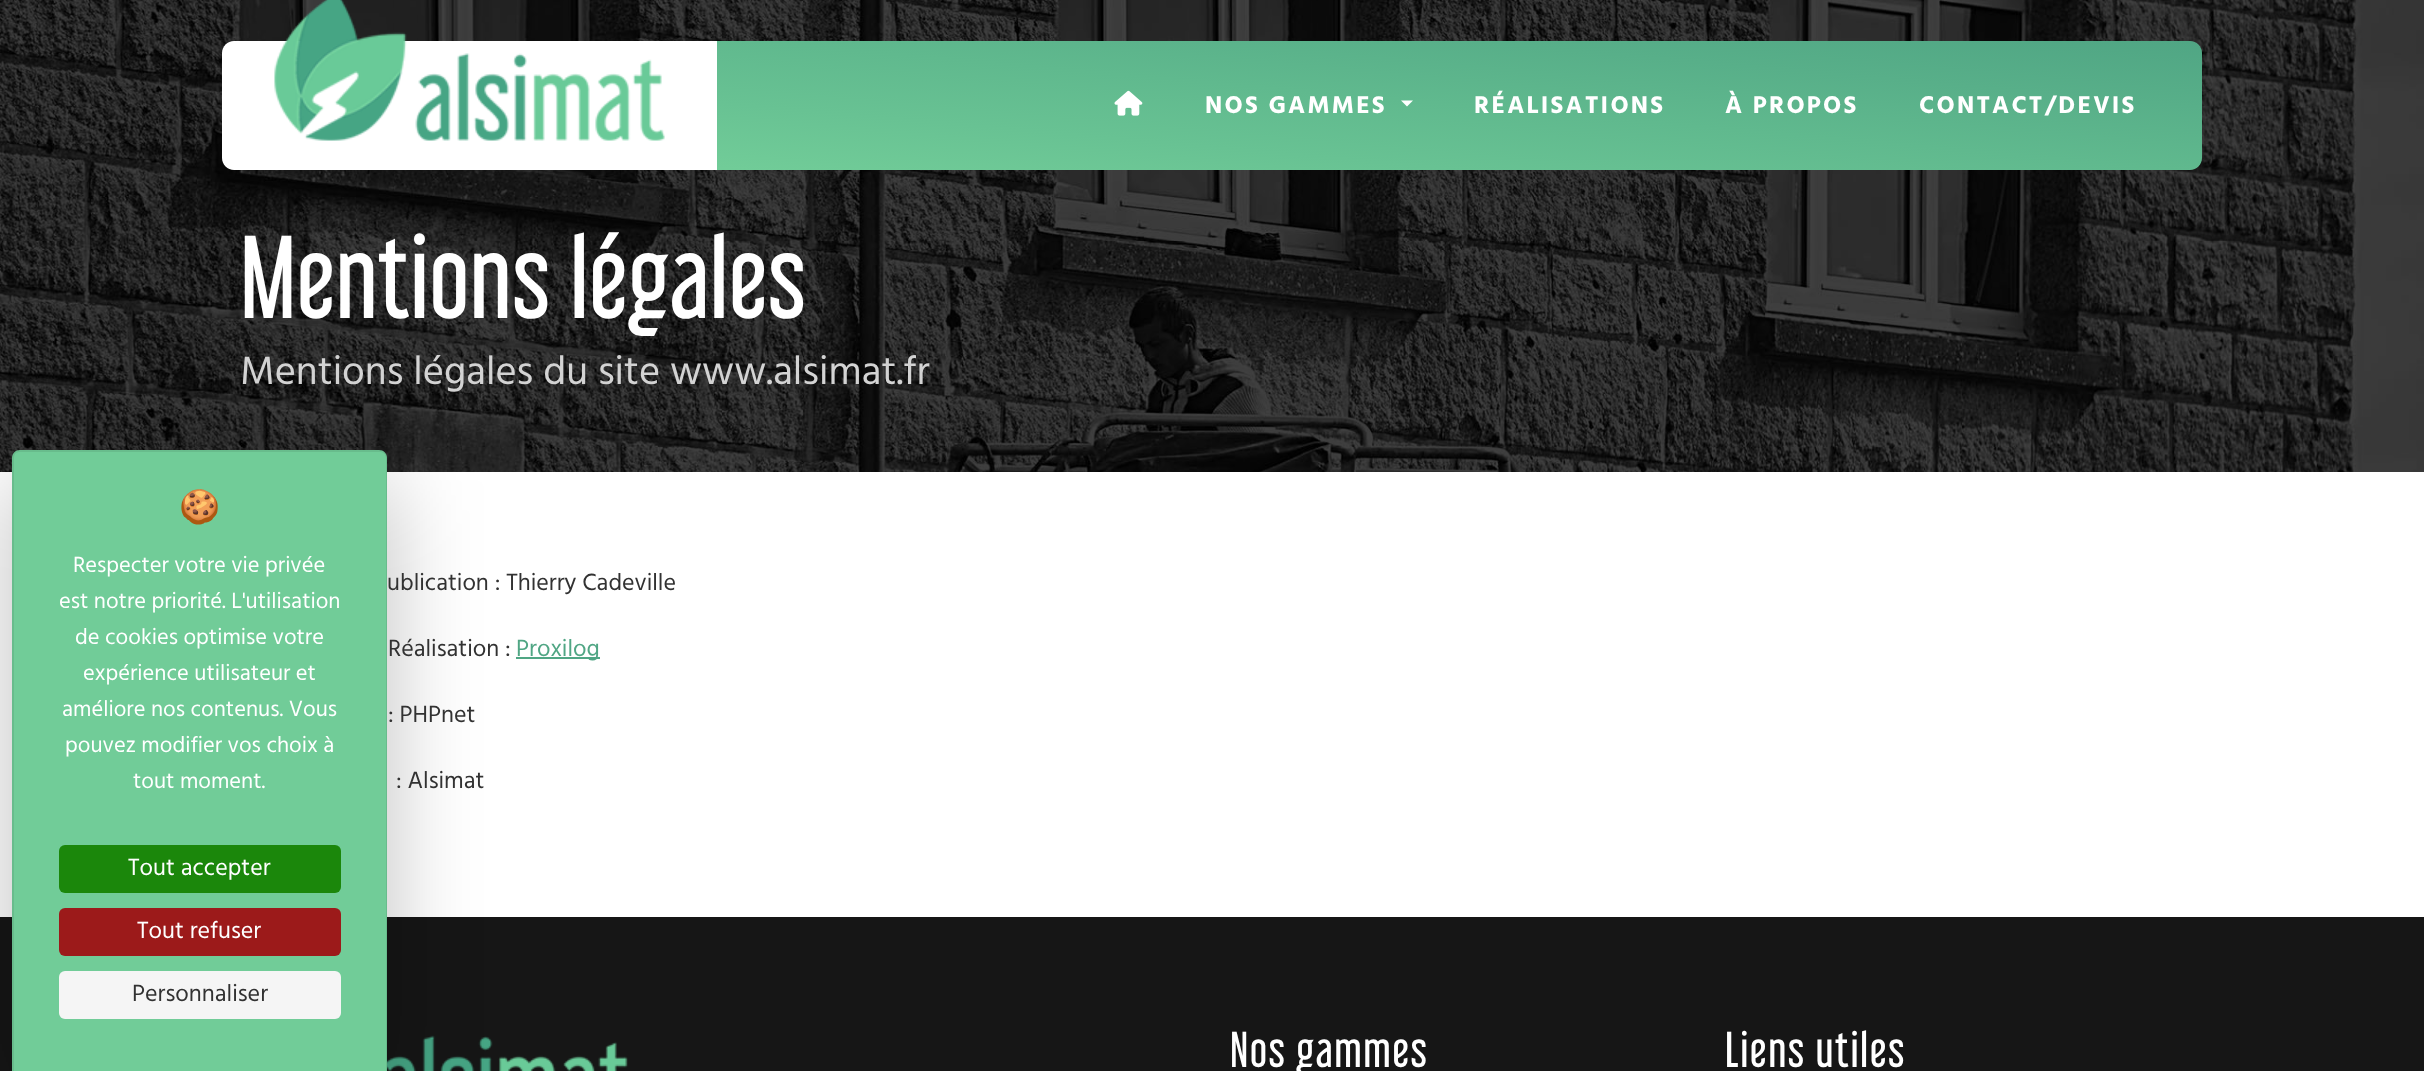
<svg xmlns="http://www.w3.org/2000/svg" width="2424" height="1071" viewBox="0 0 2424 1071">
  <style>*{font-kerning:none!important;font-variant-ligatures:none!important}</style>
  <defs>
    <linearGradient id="g1" gradientUnits="userSpaceOnUse" x1="1448" y1="233" x2="1471" y2="-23"><stop offset="0" stop-color="#71cc98"/><stop offset="0.25" stop-color="#68c293"/><stop offset="0.5" stop-color="#60b98e"/><stop offset="0.75" stop-color="#58af89"/><stop offset="1" stop-color="#50a684"/></linearGradient>
  </defs>
  <rect width="100%" height="100%" fill="#fff"/>
  <image x="0" y="0" width="2424" height="472" href="img/3.png"/>
  <path d="M234 41H717V170H234C227.5 170 222 164.5 222 158V53C222 46.5 227.5 41 234 41Z" fill="#fff"/>
  <image x="274" y="0" width="391" height="141" href="img/1.png"/>
  <path d="M717 41H2190C2196.5 41 2202 46.5 2202 53V158C2202 164.5 2196.5 170 2190 170H717Z" fill="url(#g1)"/>
  <image x="1114" y="90" width="29" height="26" href="img/2.png"/>
  <path d="M1401 100.5H1413L1407 106.5Z" fill="#fff"/>
  <path d="M516 657h84v2H516z" fill="#50a684"/>
  <path d="M0 917h2424v154H0z" fill="#161616"/>
  <image x="387" y="1035" width="241" height="36" href="img/4.png"/>
  <rect x="12" y="480" width="375" height="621" rx="8" fill="#00000040" filter="blur(45px)"/>
  <path d="M20 450H379C383.5 450 387 453.5 387 458V1071H12V458C12 453.5 15.5 450 20 450Z" fill="#71cc98"/>
  <path d="M20 450H380C384 450 387 453 387 458V1071H12V458C12 453 15 450 20 450ZM20 452H380C383 452 386 454 386 458V1071H14V458C14 454 16 452 20 452Z" fill="#00000014" fill-rule="evenodd"/>
  <rect x="59" y="845" width="282" height="48" rx="6" fill="#1b870b"/>
  <rect x="59" y="908" width="282" height="48" rx="6" fill="#9c1a1a"/>
  <rect x="59" y="971" width="282" height="48" rx="6" fill="#f5f5f5"/>
  <g font-family="Hind" font-size="24.75" font-weight="bold" letter-spacing="2.25" fill="#fff">
    <text x="1205" y="113">NOS GAMMES</text>
    <text x="1474" y="113">RÉALISATIONS</text>
    <text x="1725" y="113">À PROPOS</text>
    <text x="1919" y="113">CONTACT/DEVIS</text>
  </g>
  <text x="240" y="318" font-family="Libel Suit" font-size="105" fill="#fff">Mentions légales</text>
  <text x="240" y="384" font-family="Hind" font-size="40.5" fill="#d3d3d3">Mentions légales du site www.alsimat.fr</text>
  <text x="179" y="518" font-family="Noto Color Emoji" font-size="33" fill="#fff">🍪</text>
  <g font-family="Hind" font-size="22.5" fill="#fff">
    <text x="73" y="572">Respecter votre vie privée</text>
    <text x="59" y="608">est notre priorité. L'utilisation</text>
    <text x="75" y="644">de cookies optimise votre</text>
    <text x="83" y="680">expérience utilisateur et</text>
    <text x="62" y="716">améliore nos contenus. Vous</text>
    <text x="65" y="752">pouvez modifier vos choix à</text>
    <text x="133" y="788">tout moment.</text>
  </g>
  <g font-family="Hind" font-size="24" fill="#fff">
    <text x="128" y="875">Tout accepter</text>
    <text x="137" y="938">Tout refuser</text>
  </g>
  <g font-family="Hind" font-size="24" fill="#323232">
    <text x="132" y="1001">Personnaliser</text>
    <text x="387" y="590">ublication : Thierry Cadeville</text>
    <text x="388" y="656">Réalisation :</text>
  </g>
  <text x="516" y="656" font-family="Hind" font-size="24" fill="#50a684">Proxilog</text>
  <g font-family="Hind" font-size="24" fill="#323232">
    <text x="388" y="722">: PHPnet</text>
    <text x="396" y="788">: Alsimat</text>
  </g>
  <g font-family="Libel Suit" font-size="45" letter-spacing="1.5" fill="#fff">
    <text x="1230" y="1067">Nos gammes</text>
    <text x="1725" y="1067">Liens utiles</text>
  </g>
</svg>
